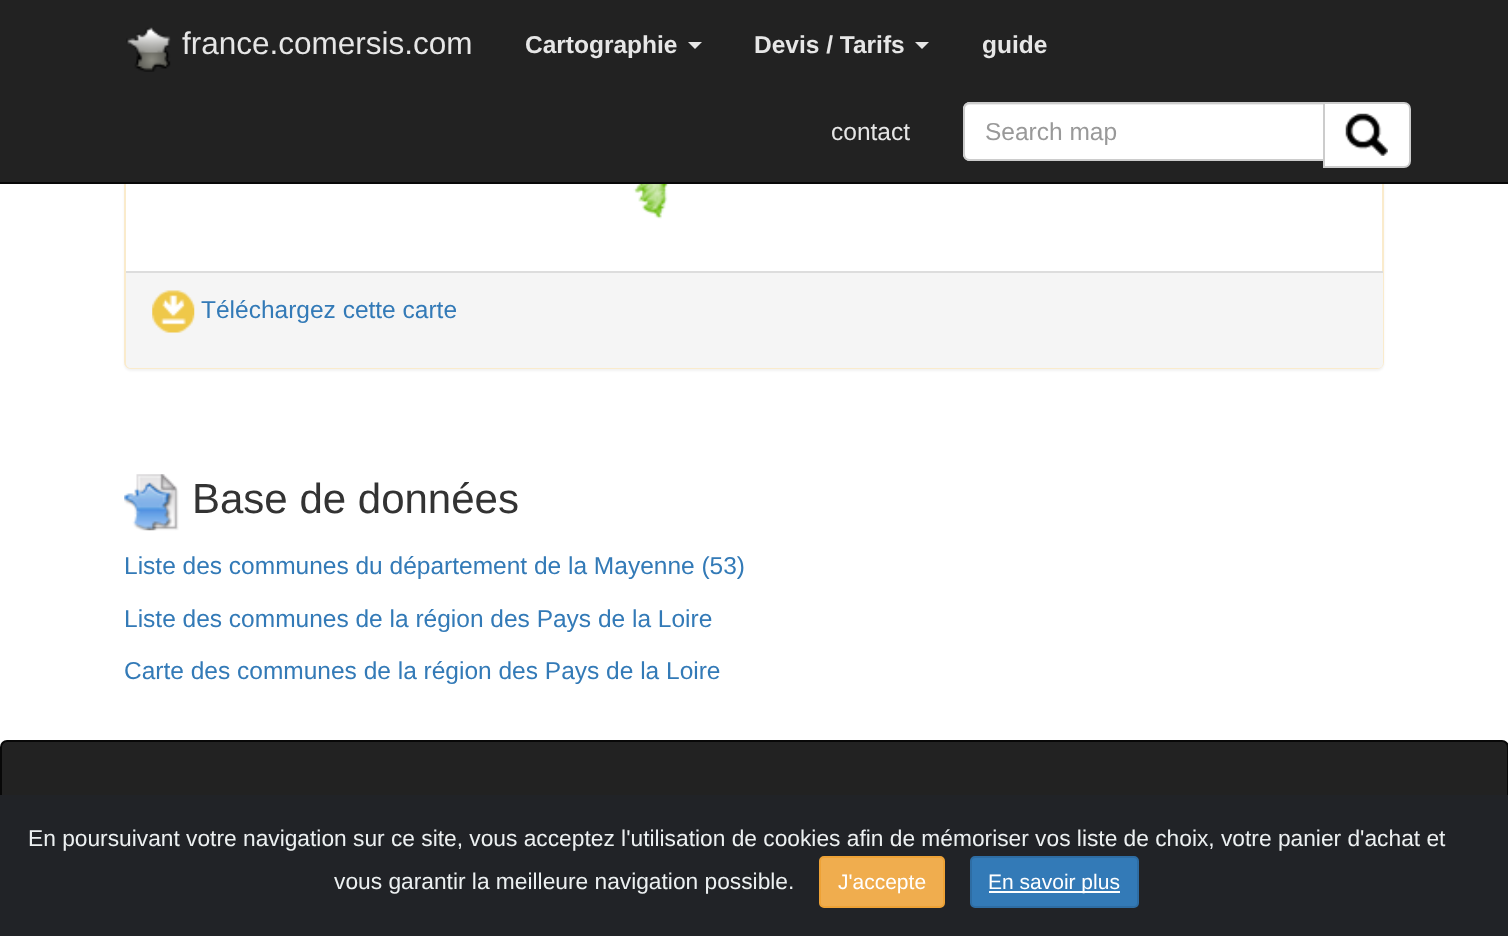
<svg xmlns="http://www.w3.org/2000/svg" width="1508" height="936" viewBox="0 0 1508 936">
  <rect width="100%" height="100%" fill="#fff"/>
  <rect x="124" y="-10" width="1260" height="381" rx="7" fill="#0000000d" filter="blur(1px)"/>
  <rect x="125" y="-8" width="1258" height="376" rx="6" fill="#fff" stroke="#faebcc" stroke-width="2"/>
  <path d="M0 0h1508v182H0z" fill="#222"/>
  <path d="M0 182h1508v2H0z" fill="#080808"/>
  <image x="126" y="27" width="45" height="45" href="img/1.png"/>
  <path d="M688 42H702L695 49Z" fill="#e6e6e6"/>
  <path d="M915 42H929L922 49Z" fill="#e6e6e6"/>
  <path d="M970 102H1325V161H970C966 161 963 158 963 154V109C963 105 966 102 970 102Z" fill="#fff"/>
  <path d="M970 105H1323V103H969C965 103 964 107 964 110C964 107 967 105 970 105Z" fill="#ececec"/>
  <path d="M970 103H1324V160H970C966.5 160 964 157.5 964 154V109C964 105.5 966.5 103 970 103Z" fill="none" stroke="#ccc" stroke-width="2"/>
  <path d="M1324 103H1404C1407.5 103 1410 105.5 1410 109V161C1410 164.5 1407.5 167 1404 167H1324Z" fill="#fff" stroke="#ccc" stroke-width="2"/>
  <image x="1345" y="113" width="43" height="43" href="img/2.png"/>
  <image x="253" y="184" width="418" height="35" href="img/3.png"/>
  <path d="M126 271H1383V363C1383 366 1381 368 1378 368H131C128 368 126 366 126 363Z" fill="#f5f5f5"/>
  <path d="M126 271h1257v2H126z" fill="#ddd"/>
  <image x="152" y="290" width="43" height="43" href="img/4.png"/>
  <image x="124" y="474" width="55" height="57" href="img/5.png"/>
  <rect x="1" y="741" width="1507" height="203" rx="6" fill="#222" stroke="#080808" stroke-width="2"/>
  <path d="M0 795h1508v141H0z" fill="#212327"/>
  <rect x="820" y="857" width="124" height="50" rx="4" fill="#f0ad4e" stroke="#eea236" stroke-width="2"/>
  <rect x="971" y="857" width="167" height="50" rx="4" fill="#337ab7" stroke="#2e6da4" stroke-width="2"/>
  <path d="M989 891h131v2H989z" fill="#fff"/>
  <text x="182" y="54" font-family="Liberation Sans" font-size="31.5" fill="#e6e6e6">france.comersis.com</text>
  <g font-family="Liberation Sans" font-size="24.5" font-weight="bold" fill="#e6e6e6">
    <text x="525" y="53">Cartographie</text>
    <text x="754" y="53">Devis / Tarifs</text>
    <text x="982" y="53">guide</text>
  </g>
  <text x="831" y="140" font-family="Liberation Sans" font-size="24.5" fill="#e6e6e6">contact</text>
  <text x="985" y="140" font-family="Liberation Sans" font-size="24.5" fill="#999">Search map</text>
  <text x="201" y="318" font-family="Liberation Sans" font-size="24.5" fill="#337ab7">Téléchargez cette carte</text>
  <text x="192" y="513" font-family="Liberation Sans" font-size="42" fill="#333">Base de données</text>
  <g font-family="Liberation Sans" font-size="24.5" fill="#337ab7">
    <text x="124" y="574">Liste des communes du département de la Mayenne (53)</text>
    <text x="124" y="627">Liste des communes de la région des Pays de la Loire</text>
    <text x="124" y="679">Carte des communes de la région des Pays de la Loire</text>
  </g>
  <g font-family="Liberation Sans" font-size="22.75" fill="#ecf0f1">
    <text x="28" y="846">En poursuivant votre navigation sur ce site, vous acceptez l'utilisation de cookies afin de mémoriser vos liste de choix, votre panier d'achat et</text>
    <text x="334" y="889">vous garantir la meilleure navigation possible.</text>
  </g>
  <g font-family="Liberation Sans" font-size="21" fill="#fff">
    <text x="838" y="889">J'accepte</text>
    <text x="988" y="889">En savoir plus</text>
  </g>
</svg>
